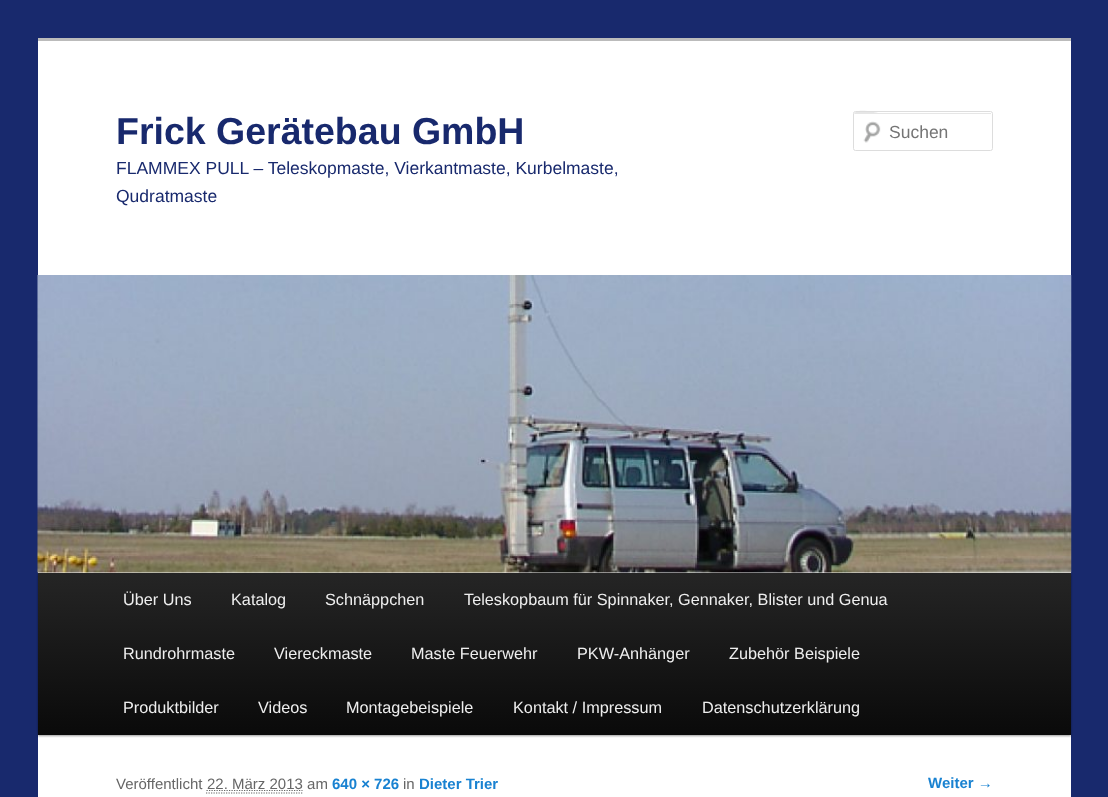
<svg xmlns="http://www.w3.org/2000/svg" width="1108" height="797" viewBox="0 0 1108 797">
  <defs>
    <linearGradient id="g1" gradientUnits="userSpaceOnUse" x1="554" y1="572" x2="554" y2="735"><stop offset="0" stop-color="#252525"/><stop offset="1" stop-color="#0a0a0a"/></linearGradient>
  </defs>
  <rect width="100%" height="100%" fill="#18296d"/>
  <path d="M38 41h1033v756H38z" fill="#fff"/>
  <path d="M38 38h1033v3H38z" fill="#bbb"/>
  <image x="863" y="121" width="18" height="22" href="img/1.png"/>
  <path d="M855 114H990C991 114 991 114 991 115V113H878C877 113 854 107 854 115C854 114 854 114 855 114Z" fill="#e6e6e6"/>
  <rect x="853.5" y="111.5" width="139" height="39" rx="2" fill="none" stroke="#ddd"/>
  <path d="M38 574h1033v162H38z" fill="#00000066" filter="blur(1px)"/>
  <image x="37" y="275" width="1035" height="298" href="img/2.png"/>
  <path d="M38 573h1033v162H38z" fill="url(#g1)"/>
  <path d="M206 793H302.5" fill="none" stroke="#666" stroke-width="1.2" stroke-dasharray="1.25 1.25"/>
  <path d="M206.5 790.5H302.5" fill="none" stroke="#666" stroke-width="1.2" stroke-dasharray="1.25 1.25"/>
  <text x="116" y="144" font-family="Liberation Sans" font-size="37.5" font-weight="bold" fill="#18296d">Frick Gerätebau GmbH</text>
  <g font-family="Liberation Sans" font-size="17.5" fill="#18296d">
    <text x="116" y="174">FLAMMEX PULL – Teleskopmaste, Vierkantmaste, Kurbelmaste,</text>
    <text x="116" y="202">Qudratmaste</text>
  </g>
  <text x="889" y="138" font-family="Liberation Sans" font-size="17.5" fill="#757575">Suchen</text>
  <g font-family="Liberation Sans" font-size="16.25" fill="#eee">
    <text x="123" y="605">Über Uns</text>
    <text x="231" y="605">Katalog</text>
    <text x="325" y="605">Schnäppchen</text>
    <text x="464" y="605">Teleskopbaum für Spinnaker, Gennaker, Blister und Genua</text>
    <text x="123" y="659">Rundrohrmaste</text>
    <text x="274" y="659">Viereckmaste</text>
    <text x="411" y="659">Maste Feuerwehr</text>
    <text x="577" y="659">PKW-Anhänger</text>
    <text x="729" y="659">Zubehör Beispiele</text>
    <text x="123" y="713">Produktbilder</text>
    <text x="258" y="713">Videos</text>
    <text x="346" y="713">Montagebeispiele</text>
    <text x="513" y="713">Kontakt / Impressum</text>
    <text x="702" y="713">Datenschutzerklärung</text>
  </g>
  <g font-family="Liberation Sans" font-size="15" fill="#666">
    <text x="116" y="789">Veröffentlicht</text>
    <text x="207" y="789">22. März 2013 am</text>
  </g>
  <text x="332" y="789" font-family="Liberation Sans" font-size="15" font-weight="bold" fill="#1982d1">640 × 726</text>
  <text x="403" y="789" font-family="Liberation Sans" font-size="15" fill="#666">in</text>
  <g font-family="Liberation Sans" font-size="15" font-weight="bold" fill="#1982d1">
    <text x="419" y="789">Dieter Trier</text>
    <text x="928" y="788">Weiter →</text>
  </g>
</svg>
